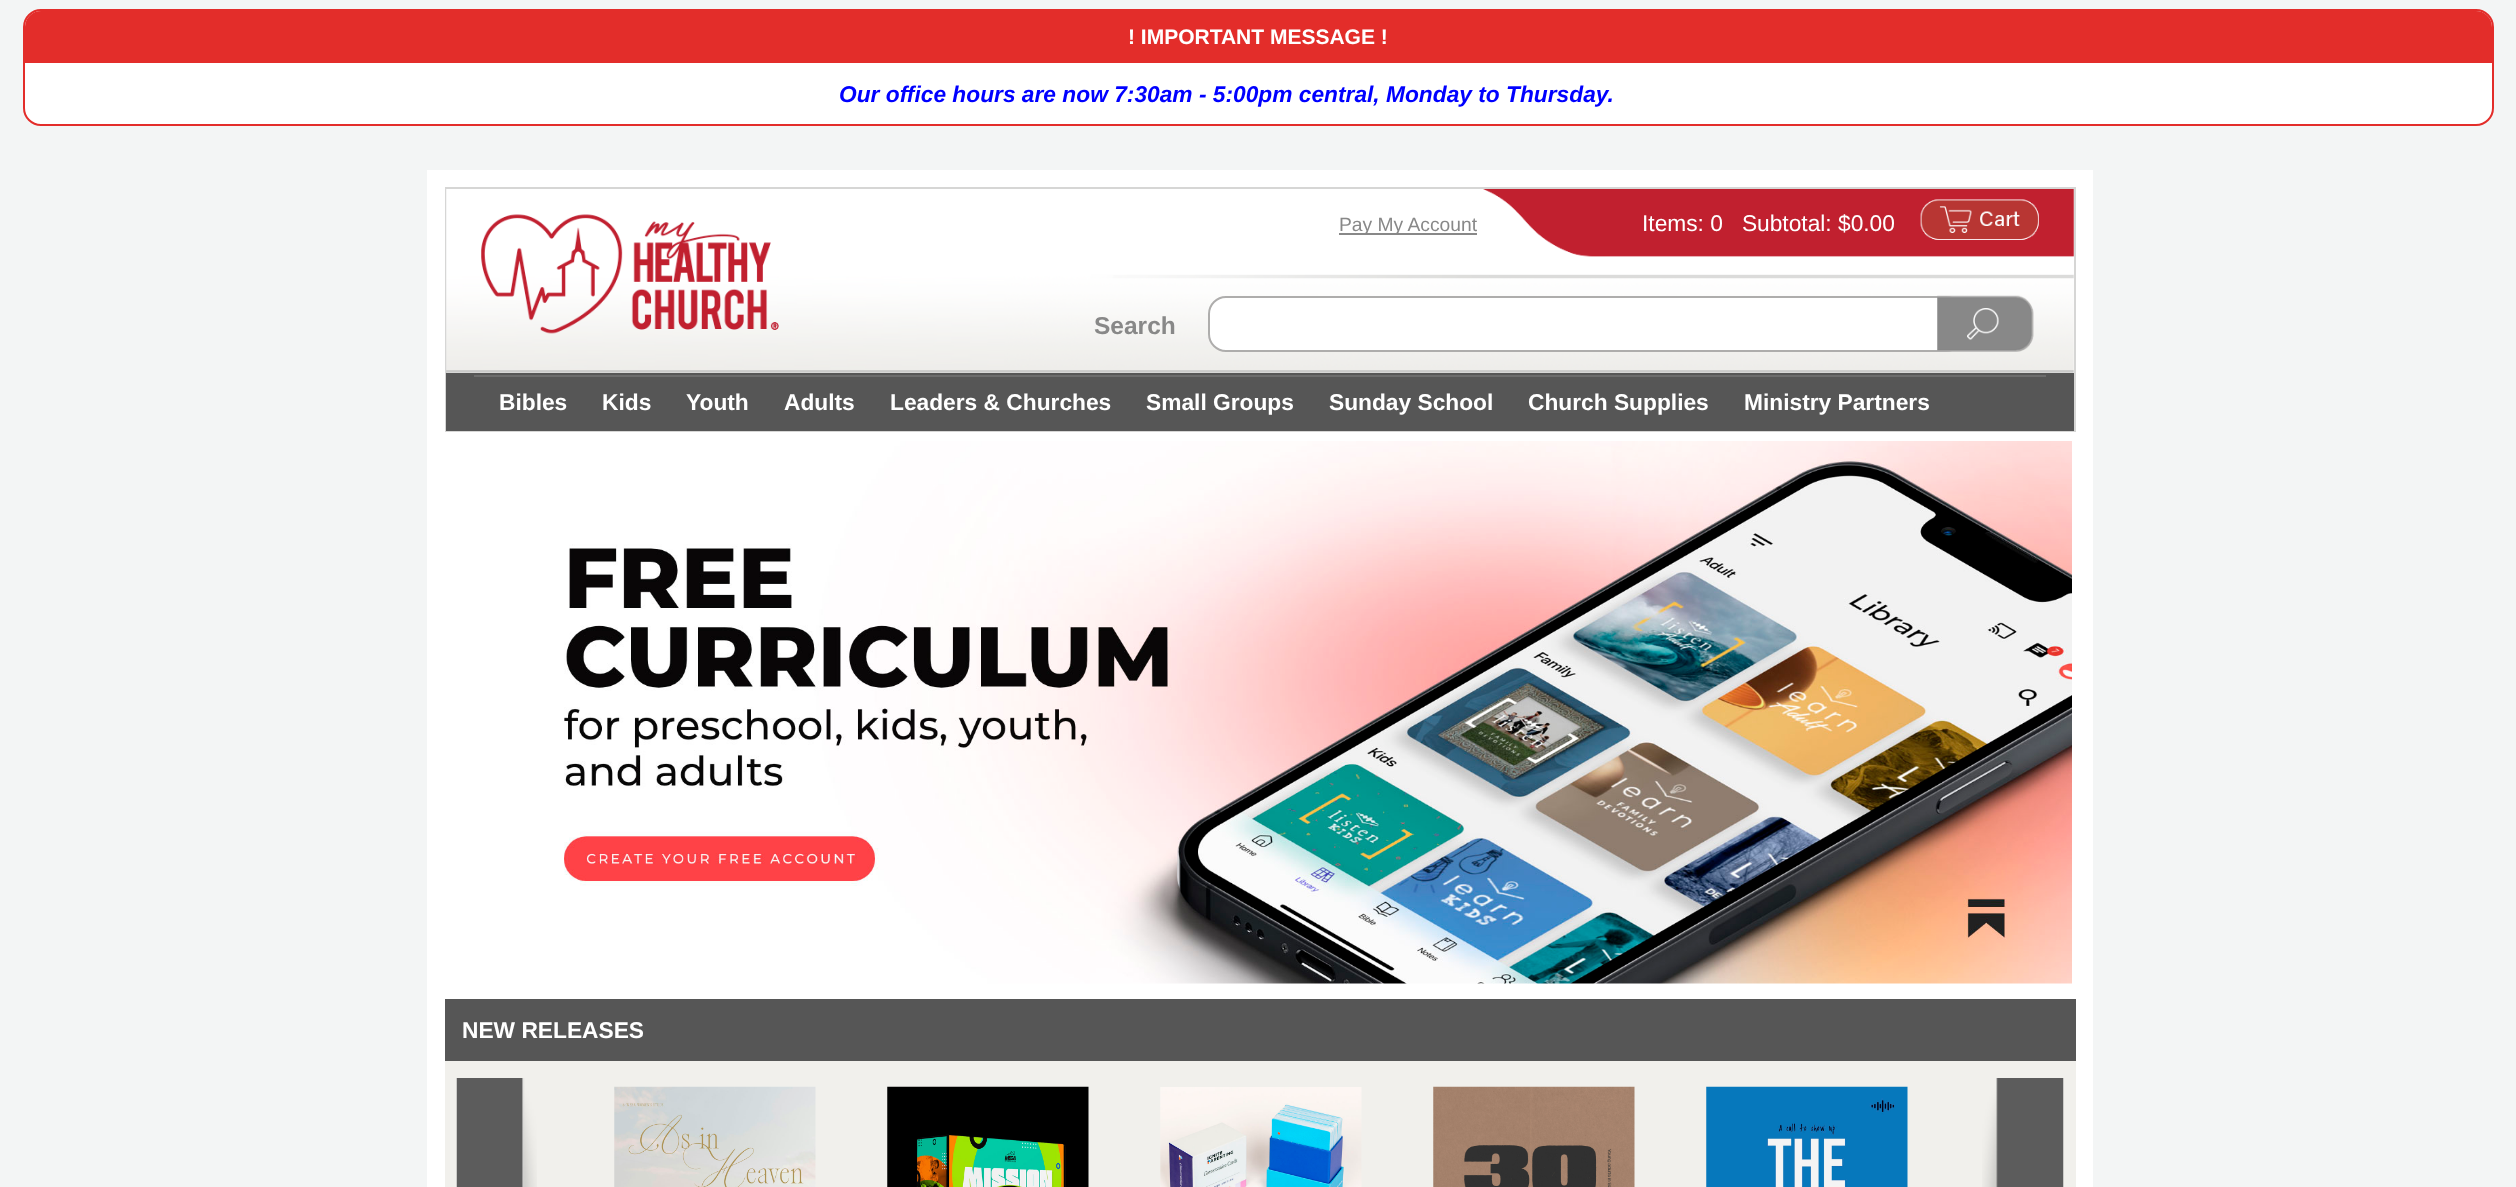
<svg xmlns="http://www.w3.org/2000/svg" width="2516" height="1187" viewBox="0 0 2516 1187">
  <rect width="100%" height="100%" fill="#f3f5f5"/>
  <rect x="24" y="10" width="2469" height="115" rx="17" fill="#fff" stroke="#e32d2a" stroke-width="2"/>
  <path d="M41 11H2476C2485 11 2492 18 2492 27V63H25V27C25 18 32 11 41 11Z" fill="#e32d2a"/>
  <path d="M427 170h1666v1017H427z" fill="#fff"/>
  <path d="M446 188h1629v243H446z" fill="none" stroke="#d6d6d5" stroke-width="2"/>
  <image x="446" y="189" width="1628" height="184" href="img/1.png"/>
  <path d="M1339 233h138v2H1339z" fill="#888"/>
  <image x="1920" y="199" width="119" height="41" href="img/2.png"/>
  <rect x="1209" y="297" width="754" height="54" rx="17" fill="#fff" stroke="#aeadac" stroke-width="2"/>
  <image x="1937" y="295" width="97" height="57" href="img/3.png"/>
  <path d="M446 373h1628v58H446z" fill="#565656"/>
  <path d="M474 375h1572v2H474z" fill="#6c6c6c"/>
  <image x="564" y="441" width="1508" height="543" href="img/4.png"/>
  <path d="M445 1061h1631v126H445z" fill="#f1f0ec"/>
  <path d="M445 999h1631v62H445z" fill="#565656"/>
  <image x="456" y="1078" width="81" height="109" href="img/5.png"/>
  <image x="614" y="1086" width="202" height="101" href="img/6.png"/>
  <image x="887" y="1086" width="202" height="101" href="img/7.png"/>
  <image x="1160" y="1087" width="202" height="100" href="img/8.png"/>
  <image x="1433" y="1086" width="202" height="101" href="img/9.png"/>
  <image x="1706" y="1086" width="202" height="101" href="img/10.png"/>
  <image x="1982" y="1078" width="82" height="109" href="img/11.png"/>
  <text x="1128" y="44" font-family="Liberation Sans" font-size="21" font-weight="bold" fill="#fff">! IMPORTANT MESSAGE !</text>
  <text x="839" y="102" font-family="Liberation Sans" font-size="22.75" font-weight="bold" font-style="italic" fill="#00f">Our office hours are now 7:30am - 5:00pm central, Monday to Thursday.</text>
  <text x="1339" y="231" font-family="Liberation Sans" font-size="19.25" fill="#888">Pay My Account</text>
  <text x="1642" y="231" font-family="Liberation Sans" font-size="22.75" fill="#fff" xml:space="preserve">Items: 0   Subtotal: $0.00</text>
  <text x="1094" y="334" font-family="Liberation Sans" font-size="24.5" font-weight="bold" fill="#888">Search</text>
  <g font-family="Liberation Sans" font-size="22.75" font-weight="bold" fill="#fff">
    <text x="499" y="410">Bibles</text>
    <text x="602" y="410">Kids</text>
    <text x="686" y="410">Youth</text>
    <text x="784" y="410">Adults</text>
    <text x="890" y="410">Leaders &amp; Churches</text>
    <text x="1146" y="410">Small Groups</text>
    <text x="1329" y="410">Sunday School</text>
    <text x="1528" y="410">Church Supplies</text>
    <text x="1744" y="410">Ministry Partners</text>
    <text x="462" y="1038">NEW RELEASES</text>
  </g>
</svg>
